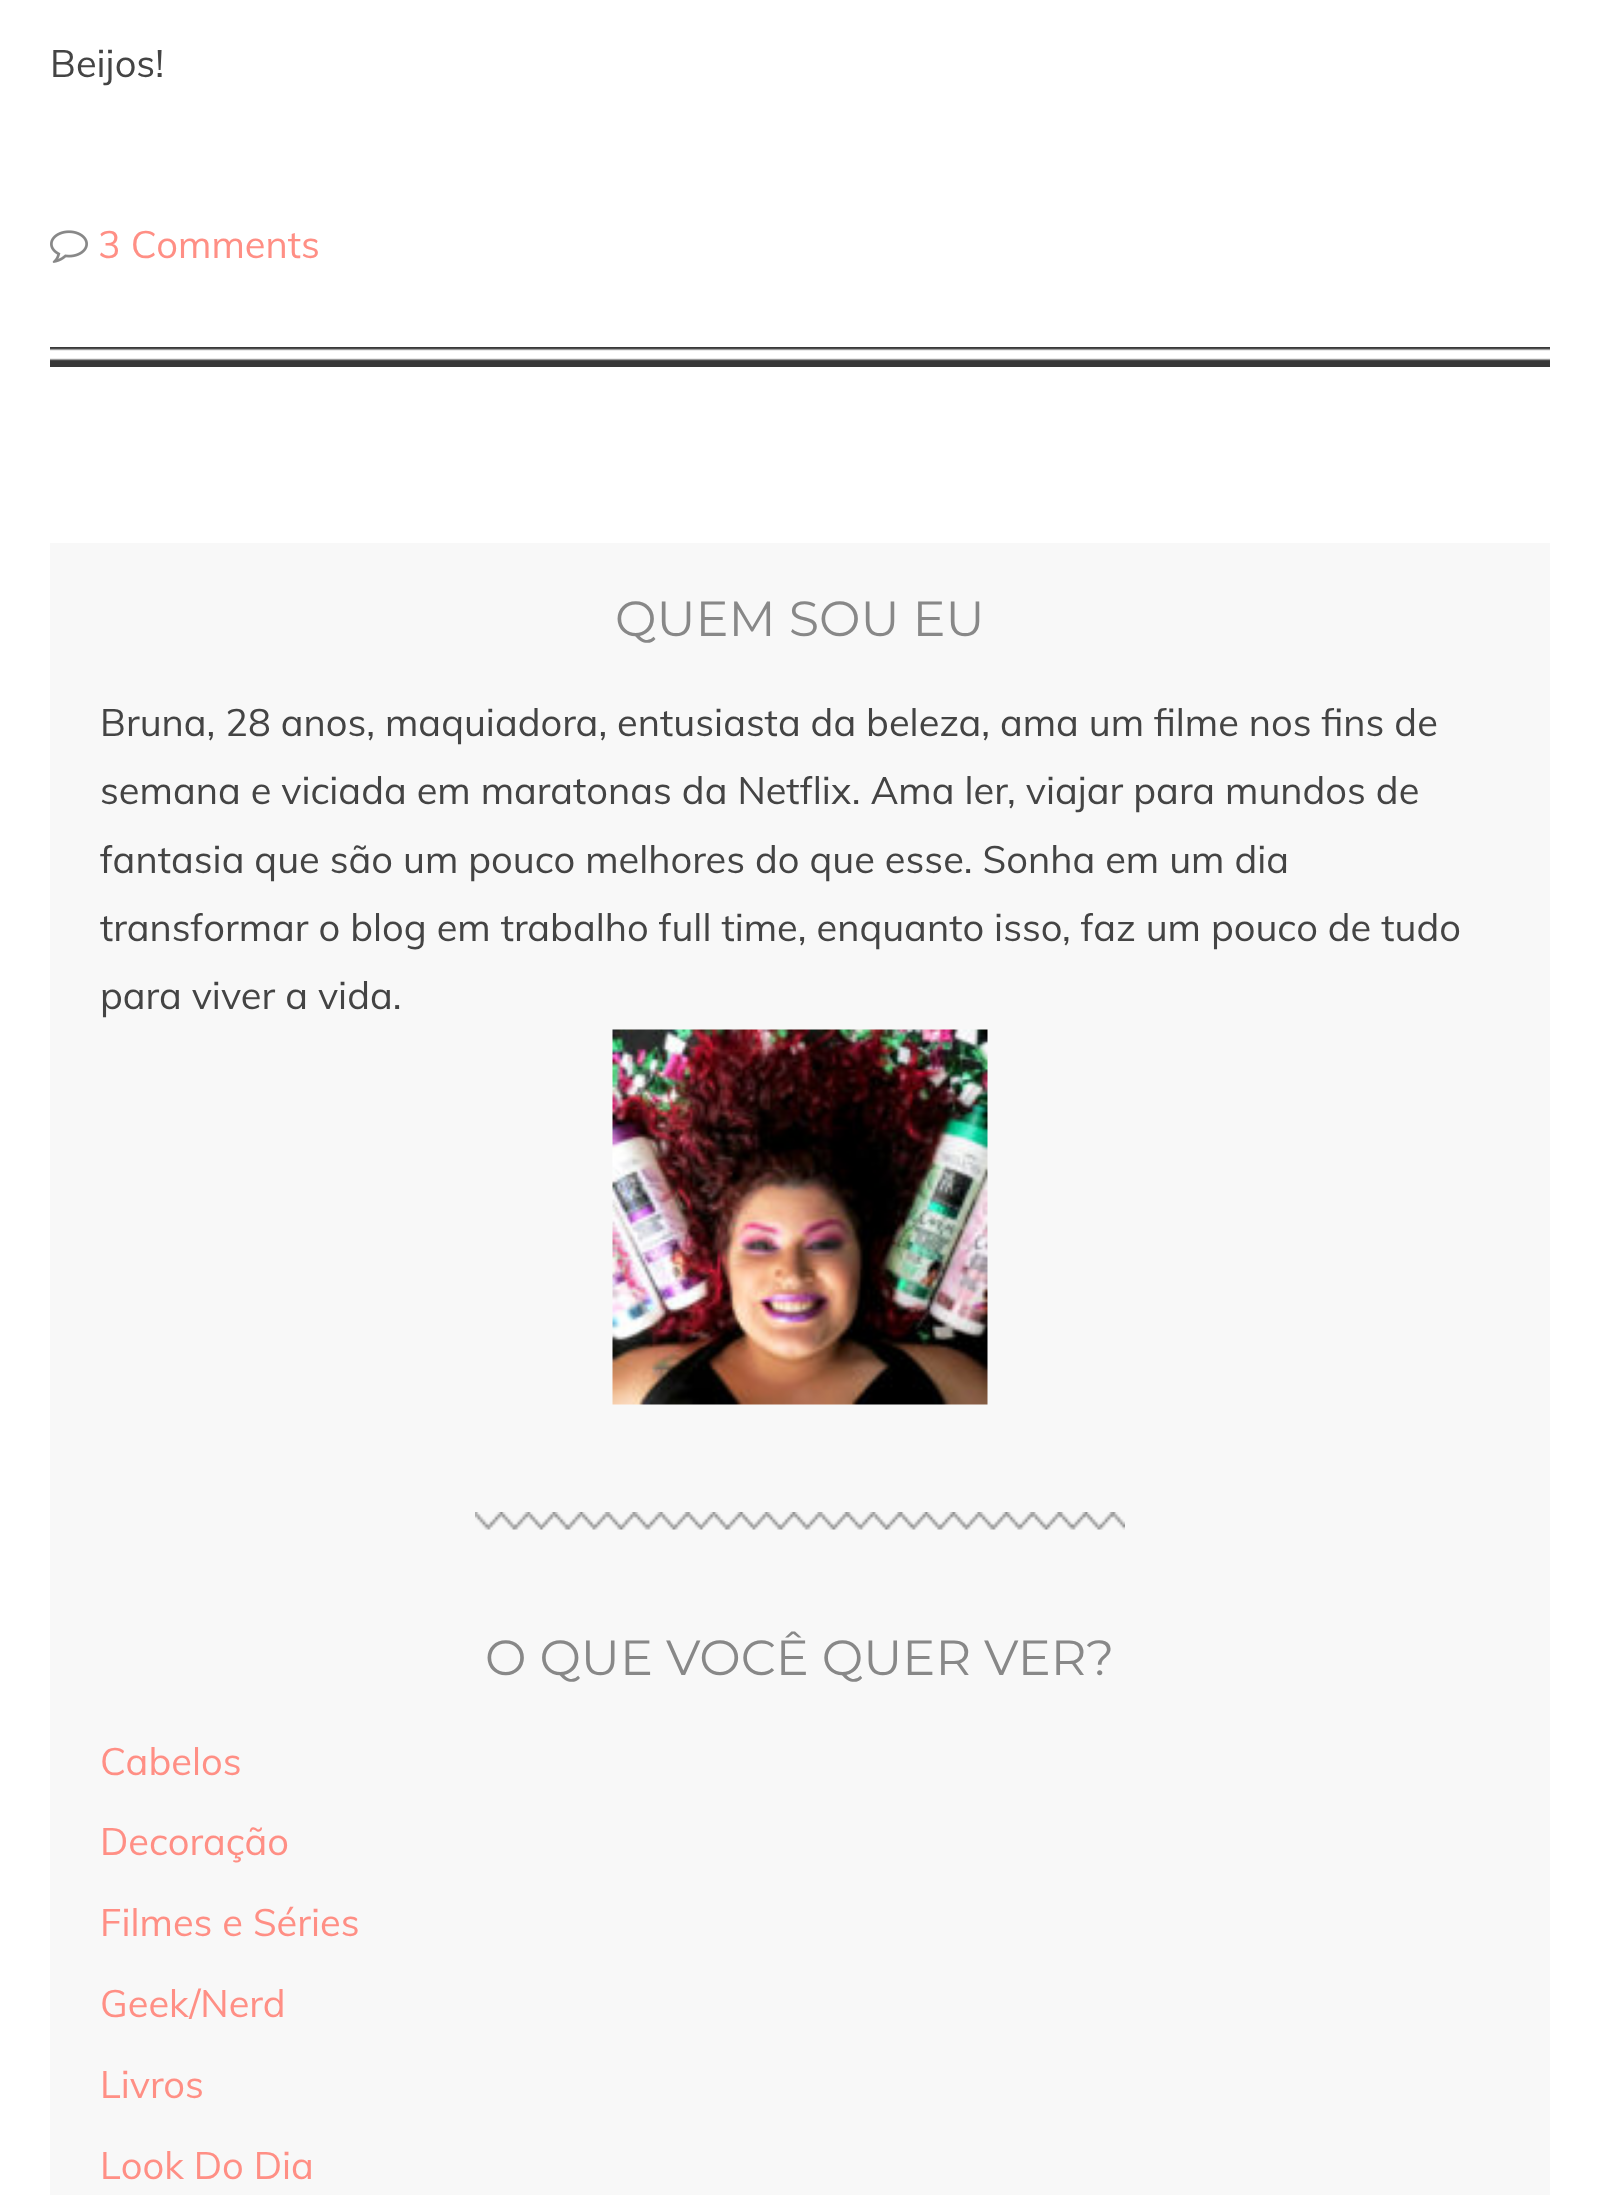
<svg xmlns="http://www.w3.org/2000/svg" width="1600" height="2195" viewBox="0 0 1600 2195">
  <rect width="100%" height="100%" fill="#fff"/>
  <image x="50" y="347" width="1500" height="20" href="img/1.png"/>
  <image x="50" y="230" width="38" height="33" href="img/2.png"/>
  <path d="M50 543h1500v1652H50z" fill="#f8f8f8"/>
  <image x="475" y="1512" width="650" height="18" href="img/3.png"/>
  <image x="612" y="1029" width="376" height="376" href="img/4.png"/>
  <text x="50" y="77" font-family="Muli" font-size="38" fill="#444">Beijos!</text>
  <text x="98" y="258" font-family="Muli" font-size="38" fill="#ff8f85">3 Comments</text>
  <text x="615" y="636" font-family="Montserrat" font-size="49.4" fill="#888">QUEM SOU EU</text>
  <g font-family="Muli" font-size="38" fill="#444">
    <text x="100" y="736">Bruna, 28 anos, maquiadora, entusiasta da beleza, ama um filme nos fins de</text>
    <text x="100" y="804">semana e viciada em maratonas da Netflix. Ama ler, viajar para mundos de</text>
    <text x="100" y="873">fantasia que são um pouco melhores do que esse. Sonha em um dia</text>
    <text x="100" y="941">transformar o blog em trabalho full time, enquanto isso, faz um pouco de tudo</text>
    <text x="100" y="1009">para viver a vida.</text>
  </g>
  <text x="485" y="1675" font-family="Montserrat" font-size="49.4" fill="#888">O QUE VOCÊ QUER VER?</text>
  <g font-family="Muli" font-size="38" fill="#ff8f85">
    <text x="100" y="1775">Cabelos</text>
    <text x="100" y="1855">Decoração</text>
    <text x="100" y="1936">Filmes e Séries</text>
    <text x="100" y="2017">Geek/Nerd</text>
    <text x="100" y="2098">Livros</text>
    <text x="100" y="2179">Look Do Dia</text>
  </g>
</svg>
